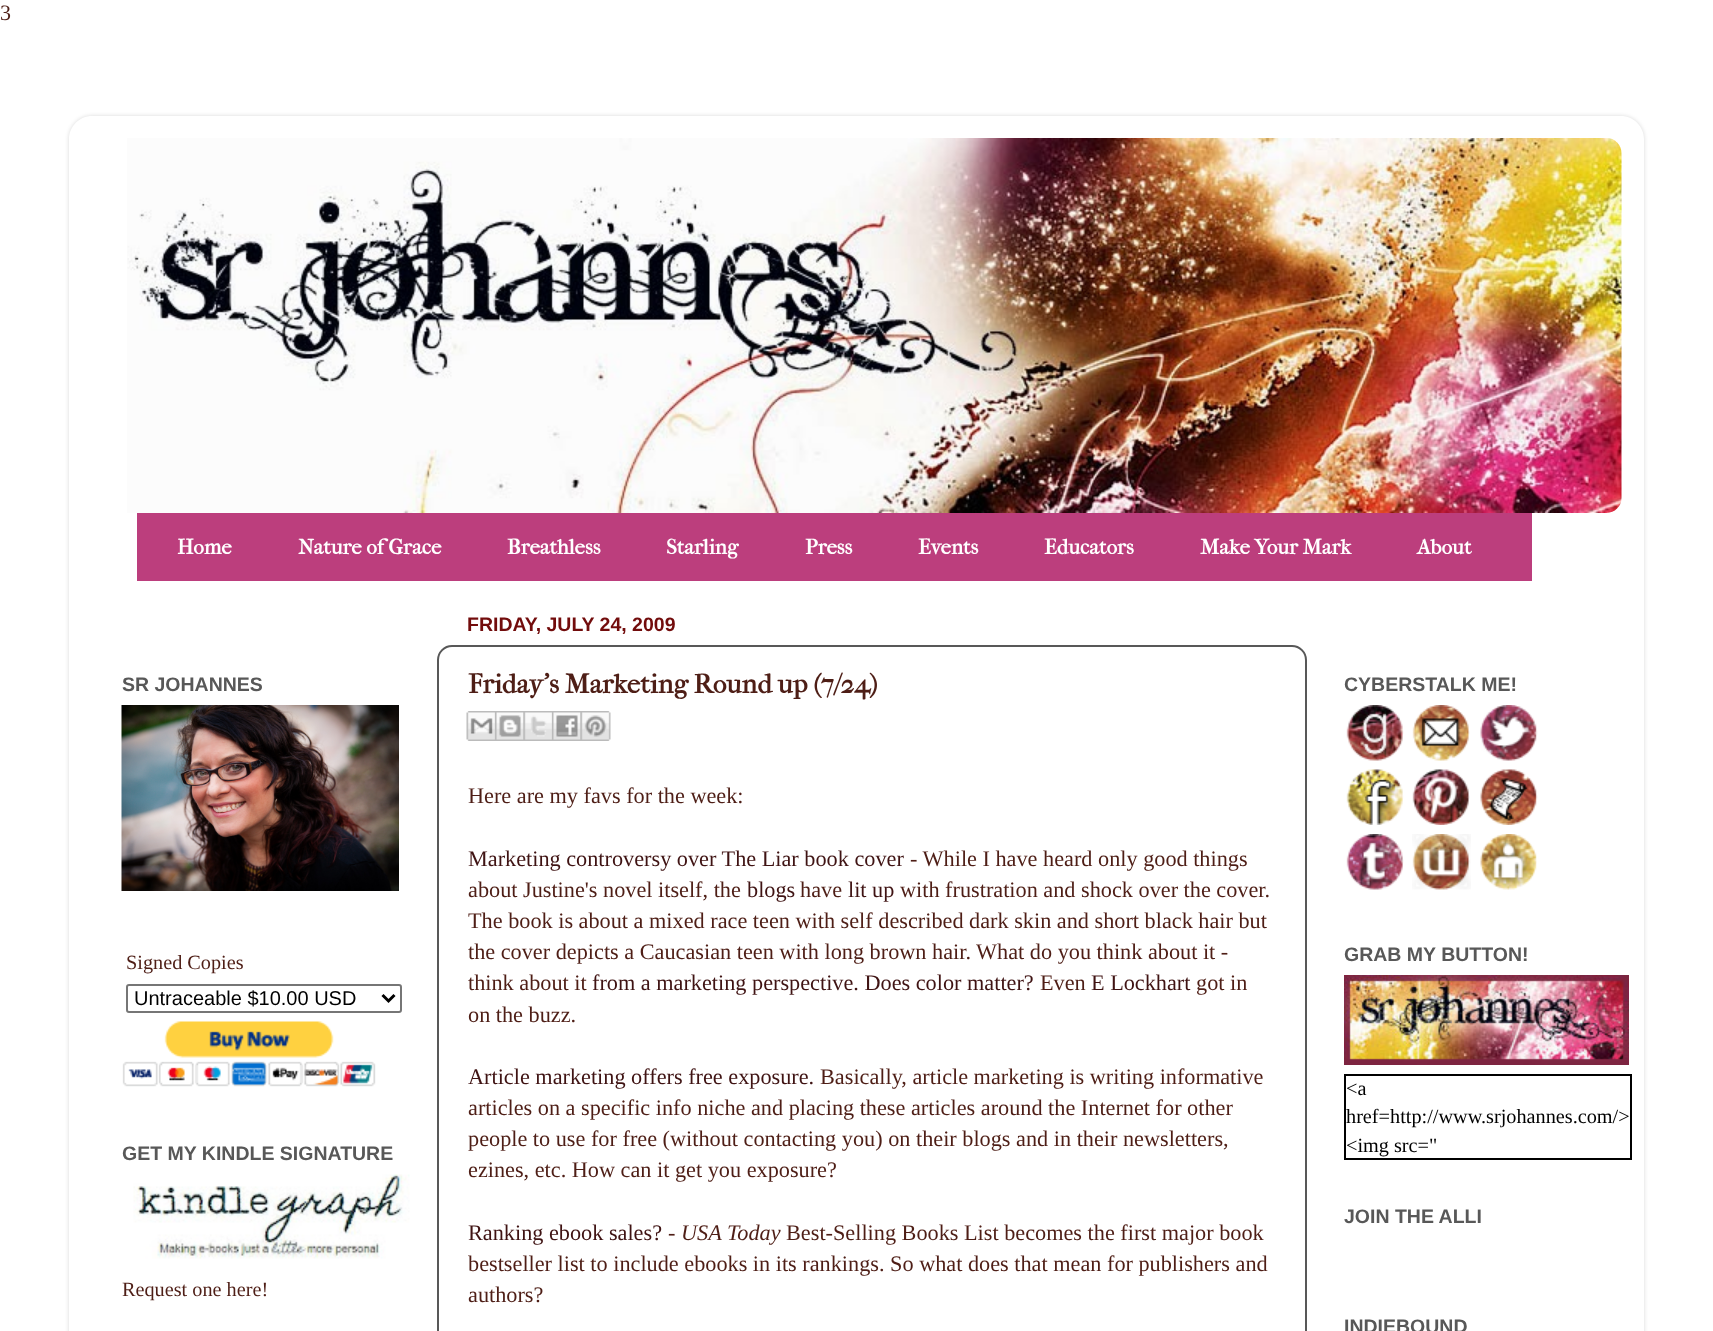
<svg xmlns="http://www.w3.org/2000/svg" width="1713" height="1331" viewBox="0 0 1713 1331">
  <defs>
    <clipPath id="clip1"><path d="M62 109H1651V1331H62ZM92 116H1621C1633.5 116 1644 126.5 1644 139V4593C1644 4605.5 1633.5 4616 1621 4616H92C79.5 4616 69 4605.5 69 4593V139C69 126.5 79.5 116 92 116Z" clip-rule="evenodd"/></clipPath>
  </defs>
  <rect width="100%" height="100%" fill="#fff"/>
  <g clip-path="url(#clip1)">
    <rect x="69" y="116" width="1575" height="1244" rx="23" fill="#00000026" filter="blur(2px)"/>
  </g>
  <image x="127" y="138" width="1495" height="375" href="img/1.png"/>
  <path d="M137 513h1395v68H137z" fill="#bc3e7d"/>
  <image x="121" y="705" width="278" height="186" href="img/2.png"/>
  <rect x="127" y="985" width="274" height="27" rx="2" fill="none" stroke="#767676" stroke-width="2"/>
  <path d="M382.5 995L388.5 1001L394.5 995" fill="none" stroke="#000" stroke-width="3"/>
  <image x="122" y="1021" width="254" height="66" href="img/3.png"/>
  <image x="133" y="1174" width="277" height="85" href="img/4.png"/>
  <rect x="438" y="646" width="868" height="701" rx="14" fill="none" stroke="#585858" stroke-width="2"/>
  <image x="466" y="711" width="29" height="30" href="img/5.png"/>
  <image x="495" y="711" width="29" height="30" href="img/6.png"/>
  <image x="523" y="711" width="29" height="30" href="img/7.png"/>
  <image x="552" y="711" width="29" height="30" href="img/8.png"/>
  <image x="580" y="711" width="31" height="30" href="img/9.png"/>
  <image x="1346" y="705" width="58" height="56" href="img/10.png"/>
  <image x="1412" y="705" width="58" height="56" href="img/11.png"/>
  <image x="1480" y="705" width="58" height="56" href="img/12.png"/>
  <image x="1346" y="769" width="58" height="56" href="img/13.png"/>
  <image x="1412" y="769" width="58" height="56" href="img/14.png"/>
  <image x="1480" y="769" width="58" height="56" href="img/15.png"/>
  <image x="1346" y="834" width="58" height="56" href="img/16.png"/>
  <image x="1412" y="834" width="59" height="56" href="img/17.png"/>
  <image x="1480" y="834" width="57" height="56" href="img/18.png"/>
  <image x="1344" y="975" width="285" height="90" href="img/19.png"/>
  <path d="M1345 1075h286v84H1345z" fill="none" stroke="#000" stroke-width="2"/>
  <text x="0" y="20" font-family="Liberation Serif" font-size="22" fill="#4e1e16">3</text>
  <g font-family="IM FELL French Canon" font-size="21" font-weight="bold" fill="#fff">
    <text x="177" y="554">Home</text>
    <text x="298" y="554">Nature of Grace</text>
    <text x="507" y="554">Breathless</text>
    <text x="666" y="554">Starling</text>
    <text x="805" y="554">Press</text>
    <text x="918" y="554">Events</text>
    <text x="1044" y="554">Educators</text>
    <text x="1200" y="554">Make Your Mark</text>
    <text x="1417" y="554">About</text>
  </g>
  <text x="122" y="691" font-family="Liberation Sans" font-size="19.5" font-weight="bold" fill="#585858">SR JOHANNES</text>
  <text x="126" y="969" font-family="Liberation Serif" font-size="20.25" fill="#4e1e16">Signed Copies</text>
  <text x="134" y="1005" font-family="Liberation Sans" font-size="20" fill="#000">Untraceable $10.00 USD</text>
  <text x="122" y="1160" font-family="Liberation Sans" font-size="19.5" font-weight="bold" fill="#585858">GET MY KINDLE SIGNATURE</text>
  <text x="122" y="1296" font-family="Liberation Serif" font-size="20.25" fill="#4e1e16">Request one here!</text>
  <text x="467" y="631" font-family="Liberation Sans" font-size="19.5" font-weight="bold" fill="#720c0c">FRIDAY, JULY 24, 2009</text>
  <text x="468" y="693" font-family="IM FELL French Canon" font-size="27" font-weight="bold" fill="#4e1e16">Friday's Marketing Round up (7/24)</text>
  <text x="468" y="803" font-family="Liberation Serif" font-size="22.25" fill="#4e1e16">Here are my favs for the week:</text>
  <text x="468" y="866" font-family="Liberation Serif" font-size="22.25" fill="#3f1313">Marketing controversy over The Liar book cover</text>
  <g font-family="Liberation Serif" font-size="22.25" fill="#4e1e16">
    <text x="910" y="866">- While I have heard only good things</text>
    <text x="468" y="897">about Justine's novel itself, the</text>
  </g>
  <text x="747" y="897" font-family="Liberation Serif" font-size="22.25" fill="#3f1313">blogs</text>
  <text x="800" y="897" font-family="Liberation Serif" font-size="22.25" fill="#4e1e16">have</text>
  <text x="848" y="897" font-family="Liberation Serif" font-size="22.25" fill="#3f1313">lit up</text>
  <g font-family="Liberation Serif" font-size="22.25" fill="#4e1e16">
    <text x="900" y="897">with frustration and shock over the cover.</text>
    <text x="468" y="928">The book is about a mixed race teen with self described dark skin and short black hair but</text>
    <text x="468" y="959">the cover depicts a Caucasian teen with long brown hair. What do you think about it -</text>
    <text x="468" y="990">think about it</text>
  </g>
  <text x="592" y="990" font-family="Liberation Serif" font-size="22.25" fill="#3f1313">from a marketing perspective. Does color matter?</text>
  <text x="1040" y="990" font-family="Liberation Serif" font-size="22.25" fill="#4e1e16">Even</text>
  <text x="1091" y="990" font-family="Liberation Serif" font-size="22.25" fill="#3f1313">E Lockhart</text>
  <g font-family="Liberation Serif" font-size="22.25" fill="#4e1e16">
    <text x="1196" y="990">got in</text>
    <text x="468" y="1022">on the buzz.</text>
  </g>
  <text x="468" y="1084" font-family="Liberation Serif" font-size="22.25" fill="#3f1313">Article marketing offers free exposure.</text>
  <g font-family="Liberation Serif" font-size="22.25" fill="#4e1e16">
    <text x="820" y="1084">Basically, article marketing is writing informative</text>
    <text x="468" y="1115">articles on a specific info niche and placing these articles around the Internet for other</text>
    <text x="468" y="1146">people to use for free (without contacting you) on their blogs and in their newsletters,</text>
    <text x="468" y="1177">ezines, etc. How can it get you exposure?</text>
  </g>
  <text x="468" y="1240" font-family="Liberation Serif" font-size="22.25" fill="#3f1313">Ranking ebook sales?</text>
  <text x="668" y="1240" font-family="Liberation Serif" font-size="22.25" fill="#4e1e16">-</text>
  <text x="681" y="1240" font-family="Liberation Serif" font-size="22.25" font-style="italic" fill="#4e1e16">USA Today</text>
  <g font-family="Liberation Serif" font-size="22.25" fill="#4e1e16">
    <text x="786" y="1240">Best-Selling Books List becomes the first major book</text>
    <text x="468" y="1271">bestseller list to include ebooks in its rankings. So what does that mean for publishers and</text>
    <text x="468" y="1302">authors?</text>
  </g>
  <g font-family="Liberation Sans" font-size="19.5" font-weight="bold" fill="#585858">
    <text x="1344" y="691">CYBERSTALK ME!</text>
    <text x="1344" y="961">GRAB MY BUTTON!</text>
  </g>
  <g font-family="Liberation Serif" font-size="20.25" fill="#000">
    <text x="1346" y="1095">&lt;a</text>
    <text x="1346" y="1123">href=http://www.srjohannes.com/&gt;</text>
    <text x="1346" y="1152">&lt;img src="</text>
  </g>
  <g font-family="Liberation Sans" font-size="19.5" font-weight="bold" fill="#585858">
    <text x="1344" y="1223">JOIN THE ALLI</text>
    <text x="1344" y="1333">INDIEBOUND</text>
  </g>
</svg>
